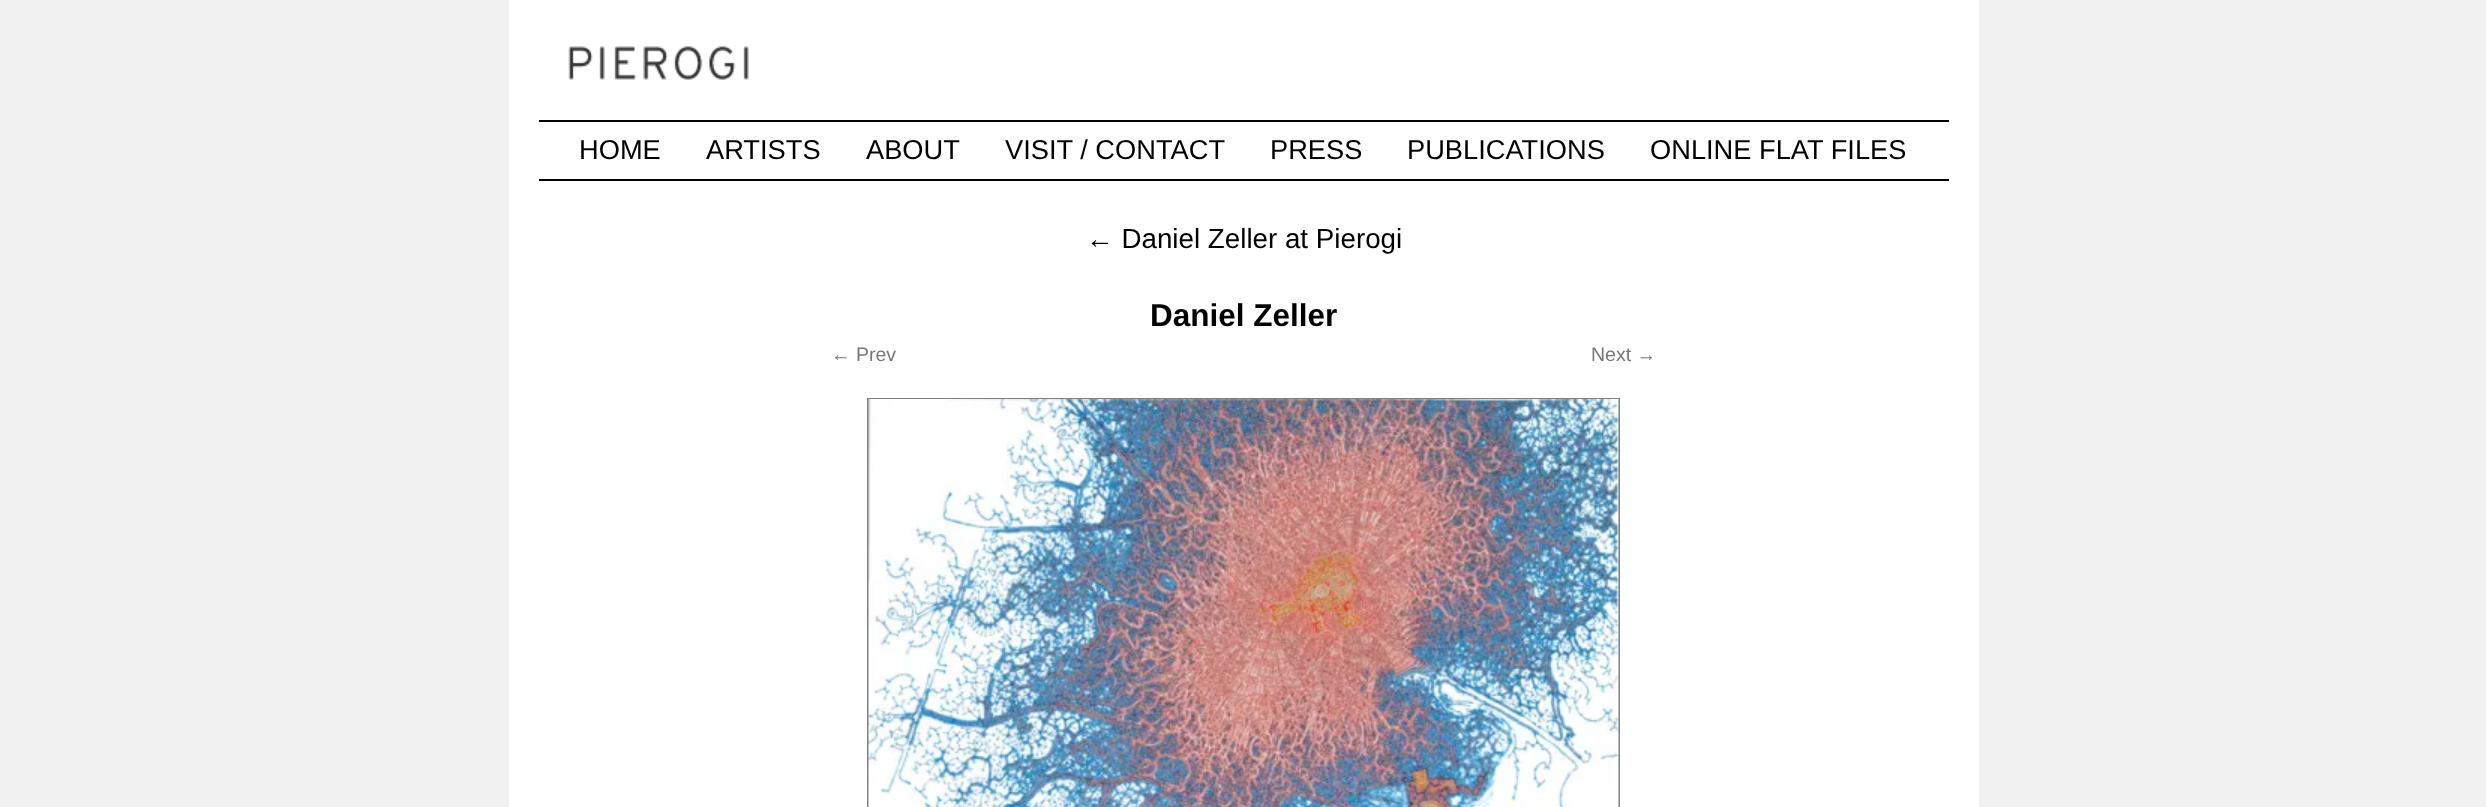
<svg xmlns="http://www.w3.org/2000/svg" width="2486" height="807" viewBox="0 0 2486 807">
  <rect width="100%" height="100%" fill="#f1f1f1"/>
  <path d="M509 0h1470v807H509z" fill="#fff"/>
  <image x="568" y="46" width="181" height="34" href="img/1.png"/>
  <path d="M539 120h1410v2H539z" fill="#000"/>
  <path d="M539 179h1410v2H539z" fill="#000"/>
  <path d="M868 399h751v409H868z" fill="none" stroke="#808080" stroke-width="2"/>
  <image x="868" y="399" width="751" height="408" href="img/2.png"/>
  <g font-family="Liberation Sans" font-size="27.25" fill="#000">
    <text x="579" y="159">HOME</text>
    <text x="706" y="159">ARTISTS</text>
    <text x="866" y="159">ABOUT</text>
    <text x="1005" y="159">VISIT / CONTACT</text>
    <text x="1270" y="159">PRESS</text>
    <text x="1407" y="159">PUBLICATIONS</text>
    <text x="1650" y="159">ONLINE FLAT FILES</text>
  </g>
  <text x="1086" y="248" font-family="Liberation Sans" font-size="27.75" fill="#000">← Daniel Zeller at Pierogi</text>
  <text x="1150" y="326" font-family="Liberation Sans" font-size="31.5" font-weight="bold" fill="#000">Daniel Zeller</text>
  <g font-family="Liberation Sans" font-size="19.5" fill="#777">
    <text x="831" y="361">← Prev</text>
    <text x="1591" y="361">Next →</text>
  </g>
</svg>
